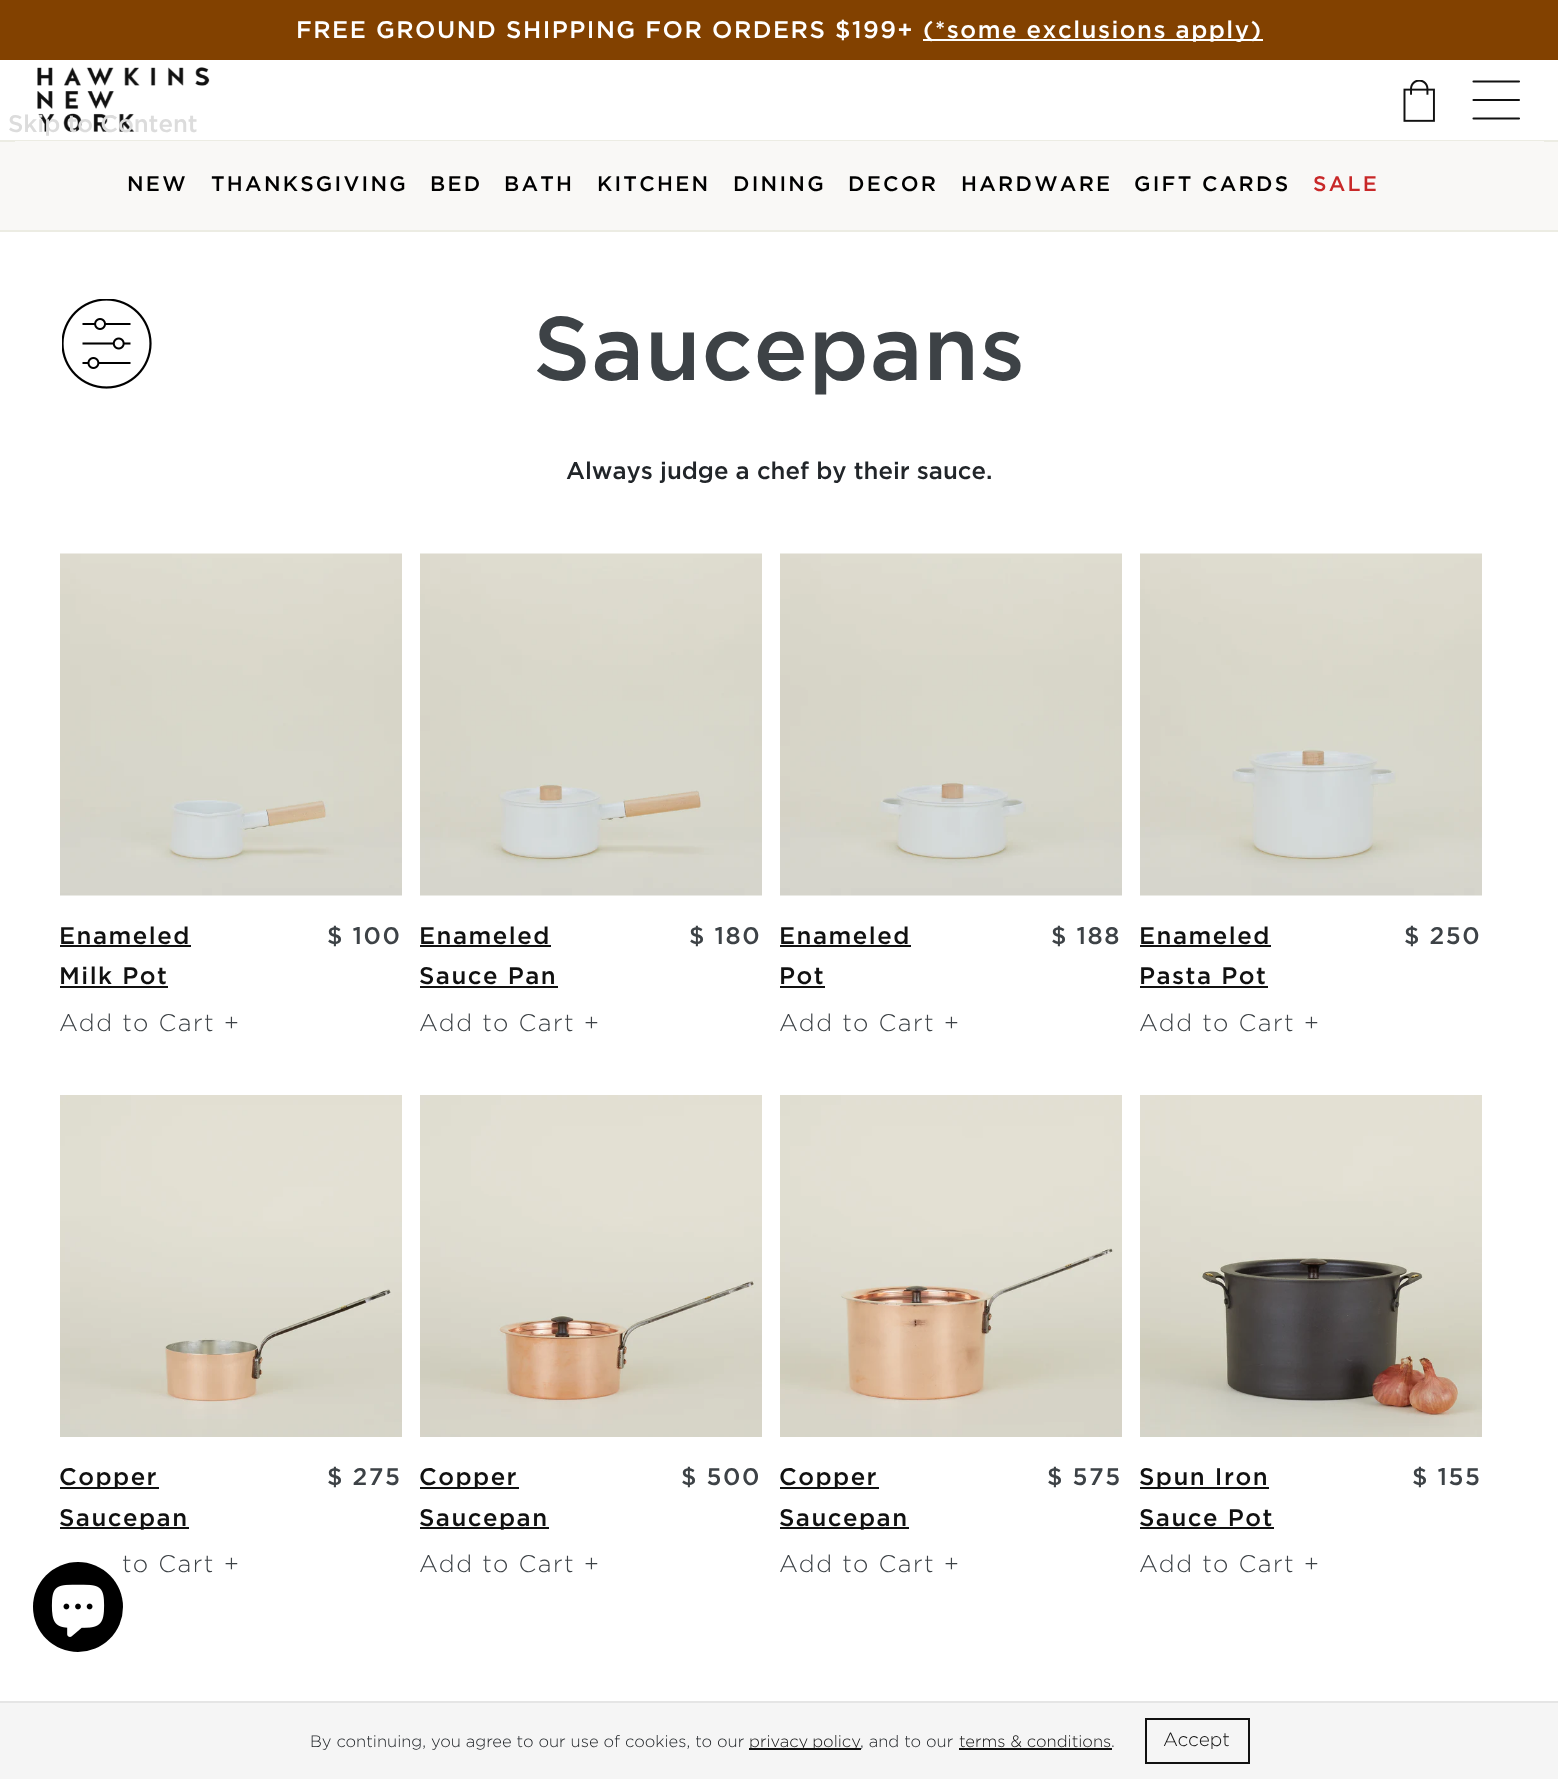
<svg xmlns="http://www.w3.org/2000/svg" width="1558" height="1779" viewBox="0 0 1558 1779">
  <rect width="100%" height="100%" fill="#fff"/>
  <path d="M0 0h1558v60H0z" fill="#824100"/>
  <path d="M923 39h340v2H923z" fill="#fff"/>
  <image x="37" y="67" width="173" height="65" href="img/1.png"/>
  <image x="1403" y="80" width="32" height="42" href="img/2.png"/>
  <path d="M1473.5 81.5H1519M1473.5 100H1519M1473.5 118.5H1519" fill="none" stroke="#111" stroke-width="2.1" stroke-linecap="round"/>
  <path d="M0 142h1558v88H0z" fill="#f9f8f6"/>
  <path d="M0 140h1558v2H0z" fill="#ecece3"/>
  <path d="M0 230h1558v2H0z" fill="#ecece3"/>
  <path d="M15 141h1529v1H15z" fill="#f9f8f6"/>
  <image x="62" y="299" width="90" height="90" href="img/3.png"/>
  <image x="60" y="553" width="342" height="343" href="img/4.png"/>
  <path d="M60 945h131v2H60z" fill="#111"/>
  <path d="M60 986h108v2H60z" fill="#111"/>
  <image x="420" y="553" width="342" height="343" href="img/5.png"/>
  <path d="M420 945h131v2H420z" fill="#111"/>
  <path d="M420 986h138v2H420z" fill="#111"/>
  <image x="780" y="553" width="342" height="343" href="img/6.png"/>
  <path d="M780 945h131v2H780z" fill="#111"/>
  <path d="M780 986h45v2H780z" fill="#111"/>
  <image x="1140" y="553" width="342" height="343" href="img/7.png"/>
  <path d="M1140 945h131v2H1140z" fill="#111"/>
  <path d="M1140 986h128v2H1140z" fill="#111"/>
  <image x="60" y="1095" width="342" height="342" href="img/8.png"/>
  <path d="M60 1487h99v2H60z" fill="#111"/>
  <path d="M60 1527h129v2H60z" fill="#111"/>
  <image x="420" y="1095" width="342" height="342" href="img/9.png"/>
  <path d="M420 1487h99v2H420z" fill="#111"/>
  <path d="M420 1527h129v2H420z" fill="#111"/>
  <image x="780" y="1095" width="342" height="342" href="img/10.png"/>
  <path d="M780 1487h99v2H780z" fill="#111"/>
  <path d="M780 1527h129v2H780z" fill="#111"/>
  <image x="1140" y="1095" width="342" height="342" href="img/11.png"/>
  <path d="M1140 1487h129v2H1140z" fill="#111"/>
  <path d="M1140 1527h134v2H1140z" fill="#111"/>
  <circle cx="78" cy="1607" r="45" fill="#000"/>
  <image x="51" y="1584" width="54" height="53" href="img/12.png"/>
  <path d="M0 1703h1558v76H0z" fill="#f5f5f5"/>
  <path d="M0 1701h1558v2H0z" fill="#e5e5e5"/>
  <path d="M749 1748h112v2H749z" fill="#111"/>
  <path d="M959 1748h153v2H959z" fill="#111"/>
  <path d="M1146 1719h103v44H1146z" fill="none" stroke="#111" stroke-width="2"/>
  <g font-family="Gotham" font-size="24" font-weight="500" letter-spacing="1.5" fill="#fff">
    <text x="296" y="38">FREE GROUND SHIPPING FOR ORDERS $199+</text>
    <text x="923" y="38">(*some exclusions apply)</text>
  </g>
  <text x="8" y="132" font-family="Gotham" font-size="24" font-weight="500" fill="#dcdcdc">Skip to Content</text>
  <g font-family="Gotham" font-size="21" font-weight="500" letter-spacing="2.25" fill="#000">
    <text x="127" y="191">NEW</text>
    <text x="211" y="191">THANKSGIVING</text>
    <text x="430" y="191">BED</text>
    <text x="504" y="191">BATH</text>
    <text x="597" y="191">KITCHEN</text>
    <text x="733" y="191">DINING</text>
    <text x="848" y="191">DECOR</text>
    <text x="961" y="191">HARDWARE</text>
    <text x="1134" y="191">GIFT CARDS</text>
  </g>
  <text x="1313" y="191" font-family="Gotham" font-size="21" font-weight="500" letter-spacing="2.25" fill="#c82828">SALE</text>
  <text x="533" y="380" font-family="Gotham" font-size="90" font-weight="500" letter-spacing="0.75" fill="#3d4246">Saucepans</text>
  <text x="566" y="479" font-family="Gotham" font-size="24" font-weight="500" fill="#212529">Always judge a chef by their sauce.</text>
  <g font-family="Gotham" font-size="24" font-weight="500" letter-spacing="1.5" fill="#111">
    <text x="59" y="944">Enameled</text>
    <text x="59" y="984">Milk Pot</text>
  </g>
  <text x="327" y="944" font-family="Gotham" font-size="24" font-weight="500" letter-spacing="1.5" fill="#3d4246">$ 100</text>
  <text x="59" y="1031" font-family="Gotham" font-size="24" font-weight="300" letter-spacing="1.5" fill="#3d4246">Add to Cart +</text>
  <g font-family="Gotham" font-size="24" font-weight="500" letter-spacing="1.5" fill="#111">
    <text x="419" y="944">Enameled</text>
    <text x="419" y="984">Sauce Pan</text>
  </g>
  <text x="689" y="944" font-family="Gotham" font-size="24" font-weight="500" letter-spacing="1.5" fill="#3d4246">$ 180</text>
  <text x="419" y="1031" font-family="Gotham" font-size="24" font-weight="300" letter-spacing="1.5" fill="#3d4246">Add to Cart +</text>
  <g font-family="Gotham" font-size="24" font-weight="500" letter-spacing="1.5" fill="#111">
    <text x="779" y="944">Enameled</text>
    <text x="779" y="984">Pot</text>
  </g>
  <text x="1051" y="944" font-family="Gotham" font-size="24" font-weight="500" letter-spacing="1.5" fill="#3d4246">$ 188</text>
  <text x="779" y="1031" font-family="Gotham" font-size="24" font-weight="300" letter-spacing="1.5" fill="#3d4246">Add to Cart +</text>
  <g font-family="Gotham" font-size="24" font-weight="500" letter-spacing="1.5" fill="#111">
    <text x="1139" y="944">Enameled</text>
    <text x="1139" y="984">Pasta Pot</text>
  </g>
  <text x="1404" y="944" font-family="Gotham" font-size="24" font-weight="500" letter-spacing="1.5" fill="#3d4246">$ 250</text>
  <text x="1139" y="1031" font-family="Gotham" font-size="24" font-weight="300" letter-spacing="1.5" fill="#3d4246">Add to Cart +</text>
  <g font-family="Gotham" font-size="24" font-weight="500" letter-spacing="1.5" fill="#111">
    <text x="59" y="1485">Copper</text>
    <text x="59" y="1526">Saucepan</text>
  </g>
  <text x="327" y="1485" font-family="Gotham" font-size="24" font-weight="500" letter-spacing="1.5" fill="#3d4246">$ 275</text>
  <text x="122" y="1572" font-family="Gotham" font-size="24" font-weight="300" letter-spacing="1.5" fill="#3d4246">to Cart +</text>
  <g font-family="Gotham" font-size="24" font-weight="500" letter-spacing="1.5" fill="#111">
    <text x="419" y="1485">Copper</text>
    <text x="419" y="1526">Saucepan</text>
  </g>
  <text x="681" y="1485" font-family="Gotham" font-size="24" font-weight="500" letter-spacing="1.5" fill="#3d4246">$ 500</text>
  <text x="419" y="1572" font-family="Gotham" font-size="24" font-weight="300" letter-spacing="1.5" fill="#3d4246">Add to Cart +</text>
  <g font-family="Gotham" font-size="24" font-weight="500" letter-spacing="1.5" fill="#111">
    <text x="779" y="1485">Copper</text>
    <text x="779" y="1526">Saucepan</text>
  </g>
  <text x="1047" y="1485" font-family="Gotham" font-size="24" font-weight="500" letter-spacing="1.5" fill="#3d4246">$ 575</text>
  <text x="779" y="1572" font-family="Gotham" font-size="24" font-weight="300" letter-spacing="1.5" fill="#3d4246">Add to Cart +</text>
  <g font-family="Gotham" font-size="24" font-weight="500" letter-spacing="1.5" fill="#111">
    <text x="1139" y="1485">Spun Iron</text>
    <text x="1139" y="1526">Sauce Pot</text>
  </g>
  <text x="1412" y="1485" font-family="Gotham" font-size="24" font-weight="500" letter-spacing="1.5" fill="#3d4246">$ 155</text>
  <text x="1139" y="1572" font-family="Gotham" font-size="24" font-weight="300" letter-spacing="1.5" fill="#3d4246">Add to Cart +</text>
  <text x="310" y="1747" font-family="Gotham" font-size="16.5" font-weight="300" fill="#212529">By continuing, you agree to our use of cookies, to our</text>
  <text x="749" y="1747" word-spacing="-1" font-family="Gotham" font-size="16.5" font-weight="300" fill="#111">privacy policy</text>
  <text x="860" y="1747" font-family="Gotham" font-size="16.5" font-weight="300" fill="#212529">, and to our</text>
  <text x="959" y="1747" font-family="Gotham" font-size="16.5" font-weight="300" fill="#111">terms &amp; conditions</text>
  <text x="1111" y="1747" font-family="Gotham" font-size="16.5" font-weight="300" fill="#212529">.</text>
  <text x="1163" y="1746" font-family="Gotham" font-size="19" font-weight="300" fill="#111">Accept</text>
</svg>
